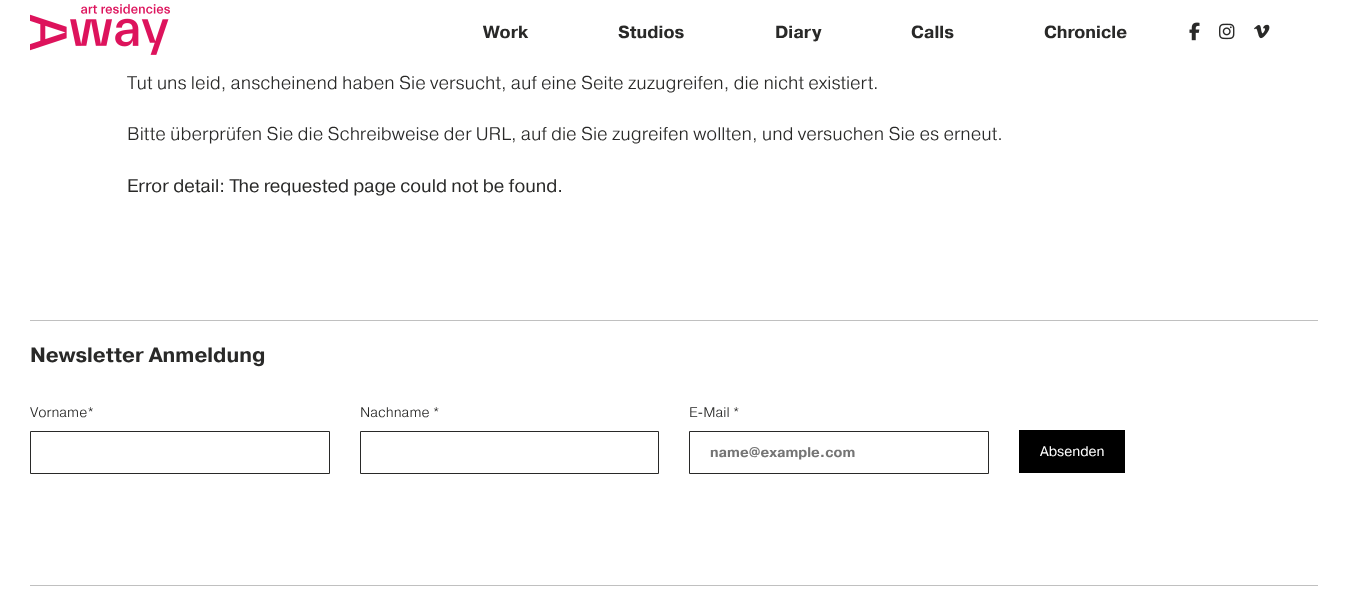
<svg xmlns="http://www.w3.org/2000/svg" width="1348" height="601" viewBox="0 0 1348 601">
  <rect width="100%" height="100%" fill="#fff"/>
  <image x="30" y="4" width="140" height="51" href="img/1.png"/>
  <image x="1189" y="22" width="11" height="19" href="img/2.png"/>
  <image x="1219" y="23" width="16" height="17" href="img/3.png"/>
  <image x="1254" y="24" width="16" height="15" href="img/4.png"/>
  <path d="M30 320h1288v1H30z" fill="#c0c0c0"/>
  <path d="M30.5 431.5h299v42H30.5z" fill="none" stroke="#292928"/>
  <path d="M360.5 431.5h298v42H360.5z" fill="none" stroke="#292928"/>
  <path d="M689.5 431.5h299v42H689.5z" fill="none" stroke="#292928"/>
  <path d="M1019 430h106v43H1019z" fill="#000"/>
  <path d="M30 585h1288v1H30z" fill="#c0c0c0"/>
  <g font-family="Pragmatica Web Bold" font-size="17.5" font-weight="bold" fill="#292928">
    <text x="483" y="38">Work</text>
    <text x="618" y="38">Studios</text>
    <text x="775" y="38">Diary</text>
    <text x="911" y="38">Calls</text>
    <text x="1044" y="38">Chronicle</text>
  </g>
  <g font-family="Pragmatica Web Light" font-size="18.4" font-weight="300" fill="#292928">
    <text x="127" y="89">Tut uns leid, anscheinend haben Sie versucht, auf eine Seite zuzugreifen, die nicht existiert.</text>
    <text x="127" y="140">Bitte überprüfen Sie die Schreibweise der URL, auf die Sie zugreifen wollten, und versuchen Sie es erneut.</text>
  </g>
  <text x="127" y="192" font-family="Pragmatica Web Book" font-size="18.4" fill="#292928">Error detail: The requested page could not be found.</text>
  <text x="30" y="362" font-family="Pragmatica Web Bold" font-size="20.75" font-weight="bold" fill="#292928">Newsletter Anmeldung</text>
  <g font-family="Pragmatica Web Light" font-size="14" font-weight="300" fill="#292928">
    <text x="30" y="417">Vorname*</text>
    <text x="360" y="417">Nachname *</text>
    <text x="689" y="417">E-Mail *</text>
  </g>
  <text x="710" y="457" font-family="Pragmatica Web Bold" font-size="14" font-weight="bold" fill="#757575">name@example.com</text>
  <text x="1040" y="456" font-family="Pragmatica Web Book" font-size="14" fill="#fff">Absenden</text>
</svg>
